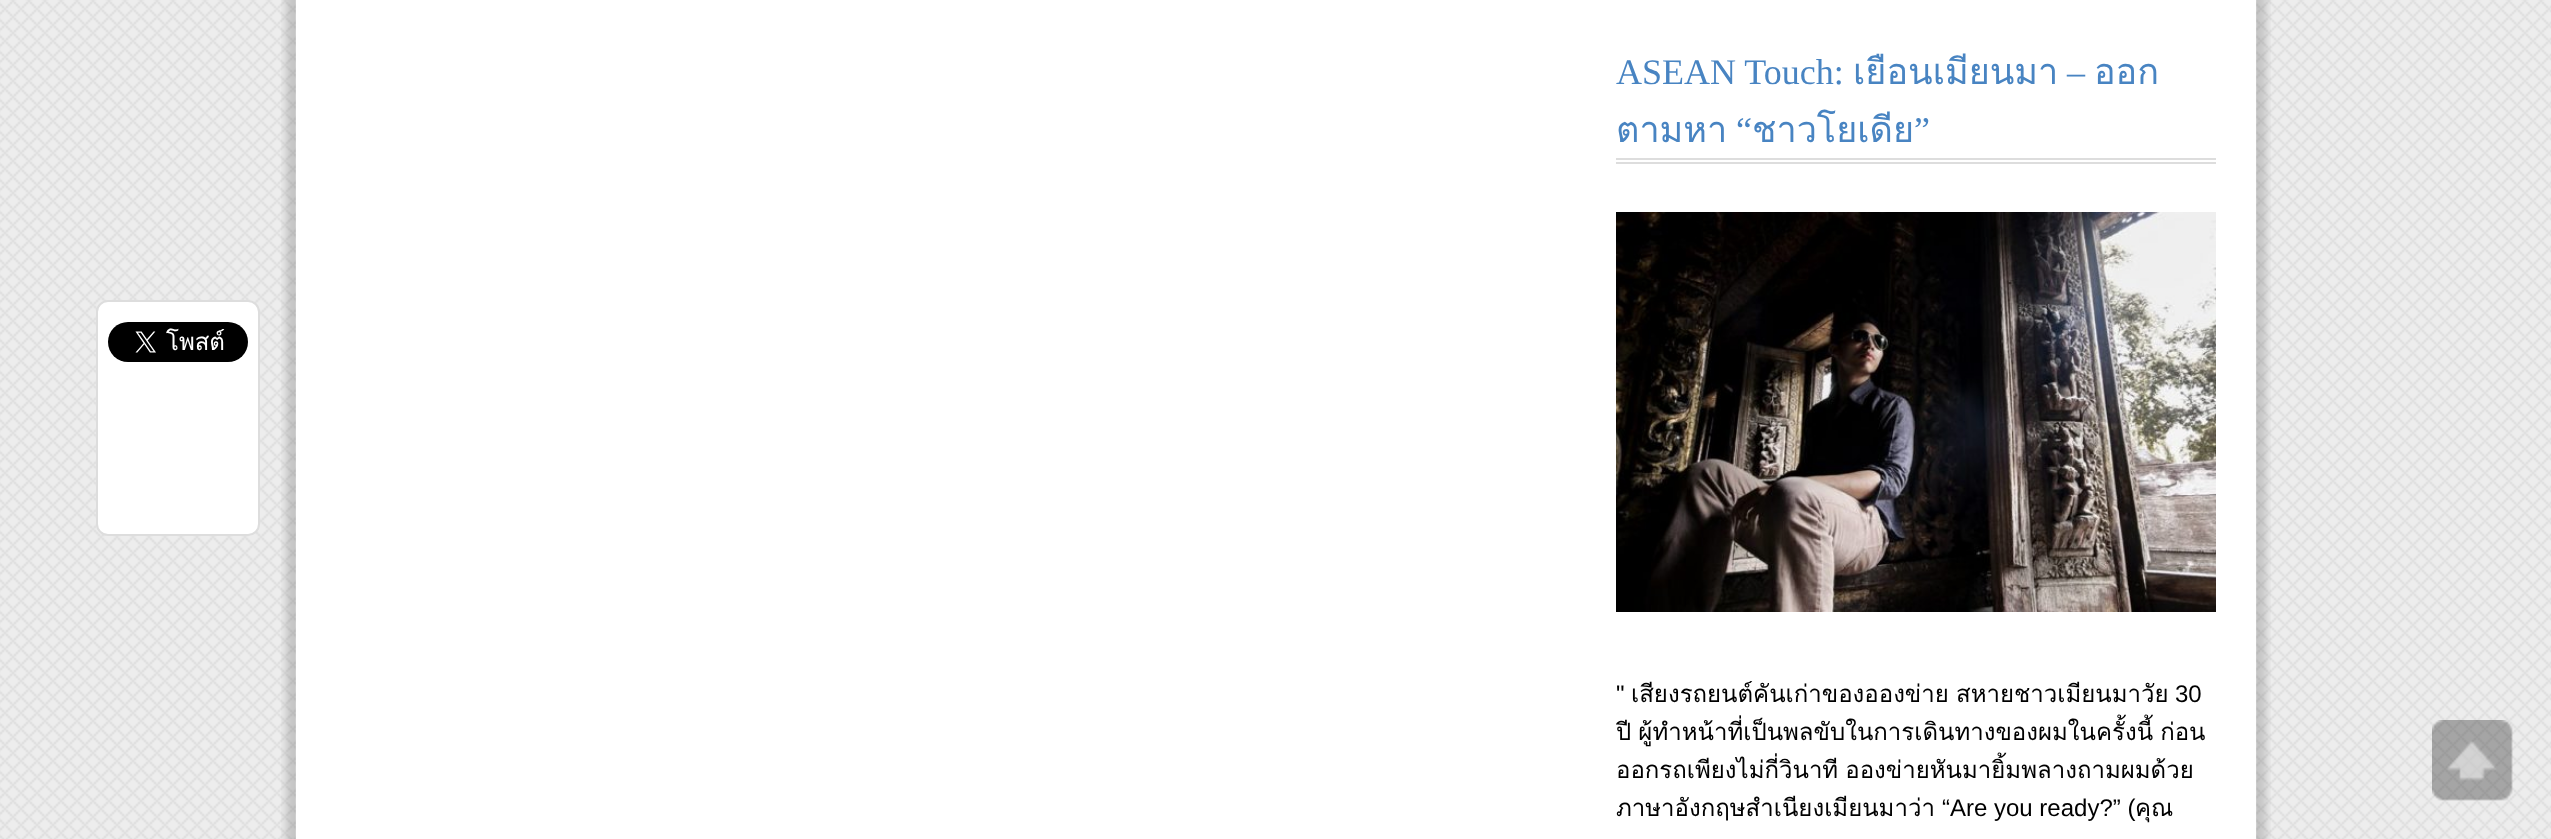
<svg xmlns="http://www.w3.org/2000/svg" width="2551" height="839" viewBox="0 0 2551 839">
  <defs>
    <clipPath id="clip1"><path d="M1616 34h600v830H1616z"/></clipPath>
  </defs>
  <rect width="100%" height="100%" fill="#ededed"/>
  <image x="0" y="0" width="2551" height="839" href="img/1.png"/>
  <image x="281" y="0" width="1990" height="839" href="img/2.png"/>
  <path d="M296 0h1960v839H296z" fill="#fff"/>
  <rect x="97" y="301" width="162" height="234" rx="11" fill="#fff" stroke="#ddd" stroke-width="2"/>
  <image x="108" y="322" width="140" height="40" href="img/3.png"/>
  <path d="M1616 158h600v2H1616z" fill="#ddd"/>
  <path d="M1616 162h600v2H1616z" fill="#ddd"/>
  <image x="1616" y="212" width="600" height="400" href="img/4.png"/>
  <image x="2432" y="720" width="81" height="81" href="img/5.png"/>
  <text x="1616" y="84" font-family="Liberation Serif" font-size="36" fill="#4884c2">ASEAN Touch:</text>
  <text x="1853" y="84" font-family="Loma" font-size="36" fill="#4884c2">เยือนเมียนมา</text>
  <text x="2067" y="84" font-family="Liberation Serif" font-size="36" fill="#4884c2">–</text>
  <g font-family="Loma" font-size="36" fill="#4884c2">
    <text x="2094" y="84">ออก</text>
    <text x="1616" y="142">ตามหา</text>
  </g>
  <text x="1736" y="142" font-family="Liberation Serif" font-size="36" fill="#4884c2">“</text>
  <text x="1752" y="142" font-family="Loma" font-size="36" fill="#4884c2">ชาวโยเดีย</text>
  <text x="1914" y="142" font-family="Liberation Serif" font-size="36" fill="#4884c2">”</text>
  <text x="1956" y="702" font-family="Loma" font-size="24" fill="#000">สหายชาวเมียนมาวัย</text>
  <text x="1616" y="702" font-family="Liberation Sans" font-size="24" fill="#000"> "</text>
  <text x="1631" y="702" font-family="Loma" font-size="24" fill="#000">เสียงรถยนต์คันเก่าของอองข่าย</text>
  <text x="2175" y="702" font-family="Liberation Sans" font-size="24" fill="#000">30</text>
  <g clip-path="url(#clip1)">
    <text x="1616" y="740" word-spacing="-1" font-family="Loma" font-size="24" fill="#000">ปี ผู้ทำหน้าที่เป็นพลขับในการเดินทางของผมในครั้งนี้ ก่อน</text>
  </g>
  <g font-family="Loma" font-size="24" fill="#000">
    <text x="1616" y="778" word-spacing="-1">ออกรถเพียงไม่กี่วินาที อองข่ายหันมายิ้มพลางถามผมด้วย</text>
    <text x="1616" y="816">ภาษาอังกฤษสำเนียงเมียนมาว่า</text>
  </g>
  <text x="1942" y="816" font-family="Liberation Sans" font-size="24" fill="#000">“Are you ready?” (</text>
  <text x="2135" y="816" font-family="Loma" font-size="24" fill="#000">คุณ</text>
</svg>
